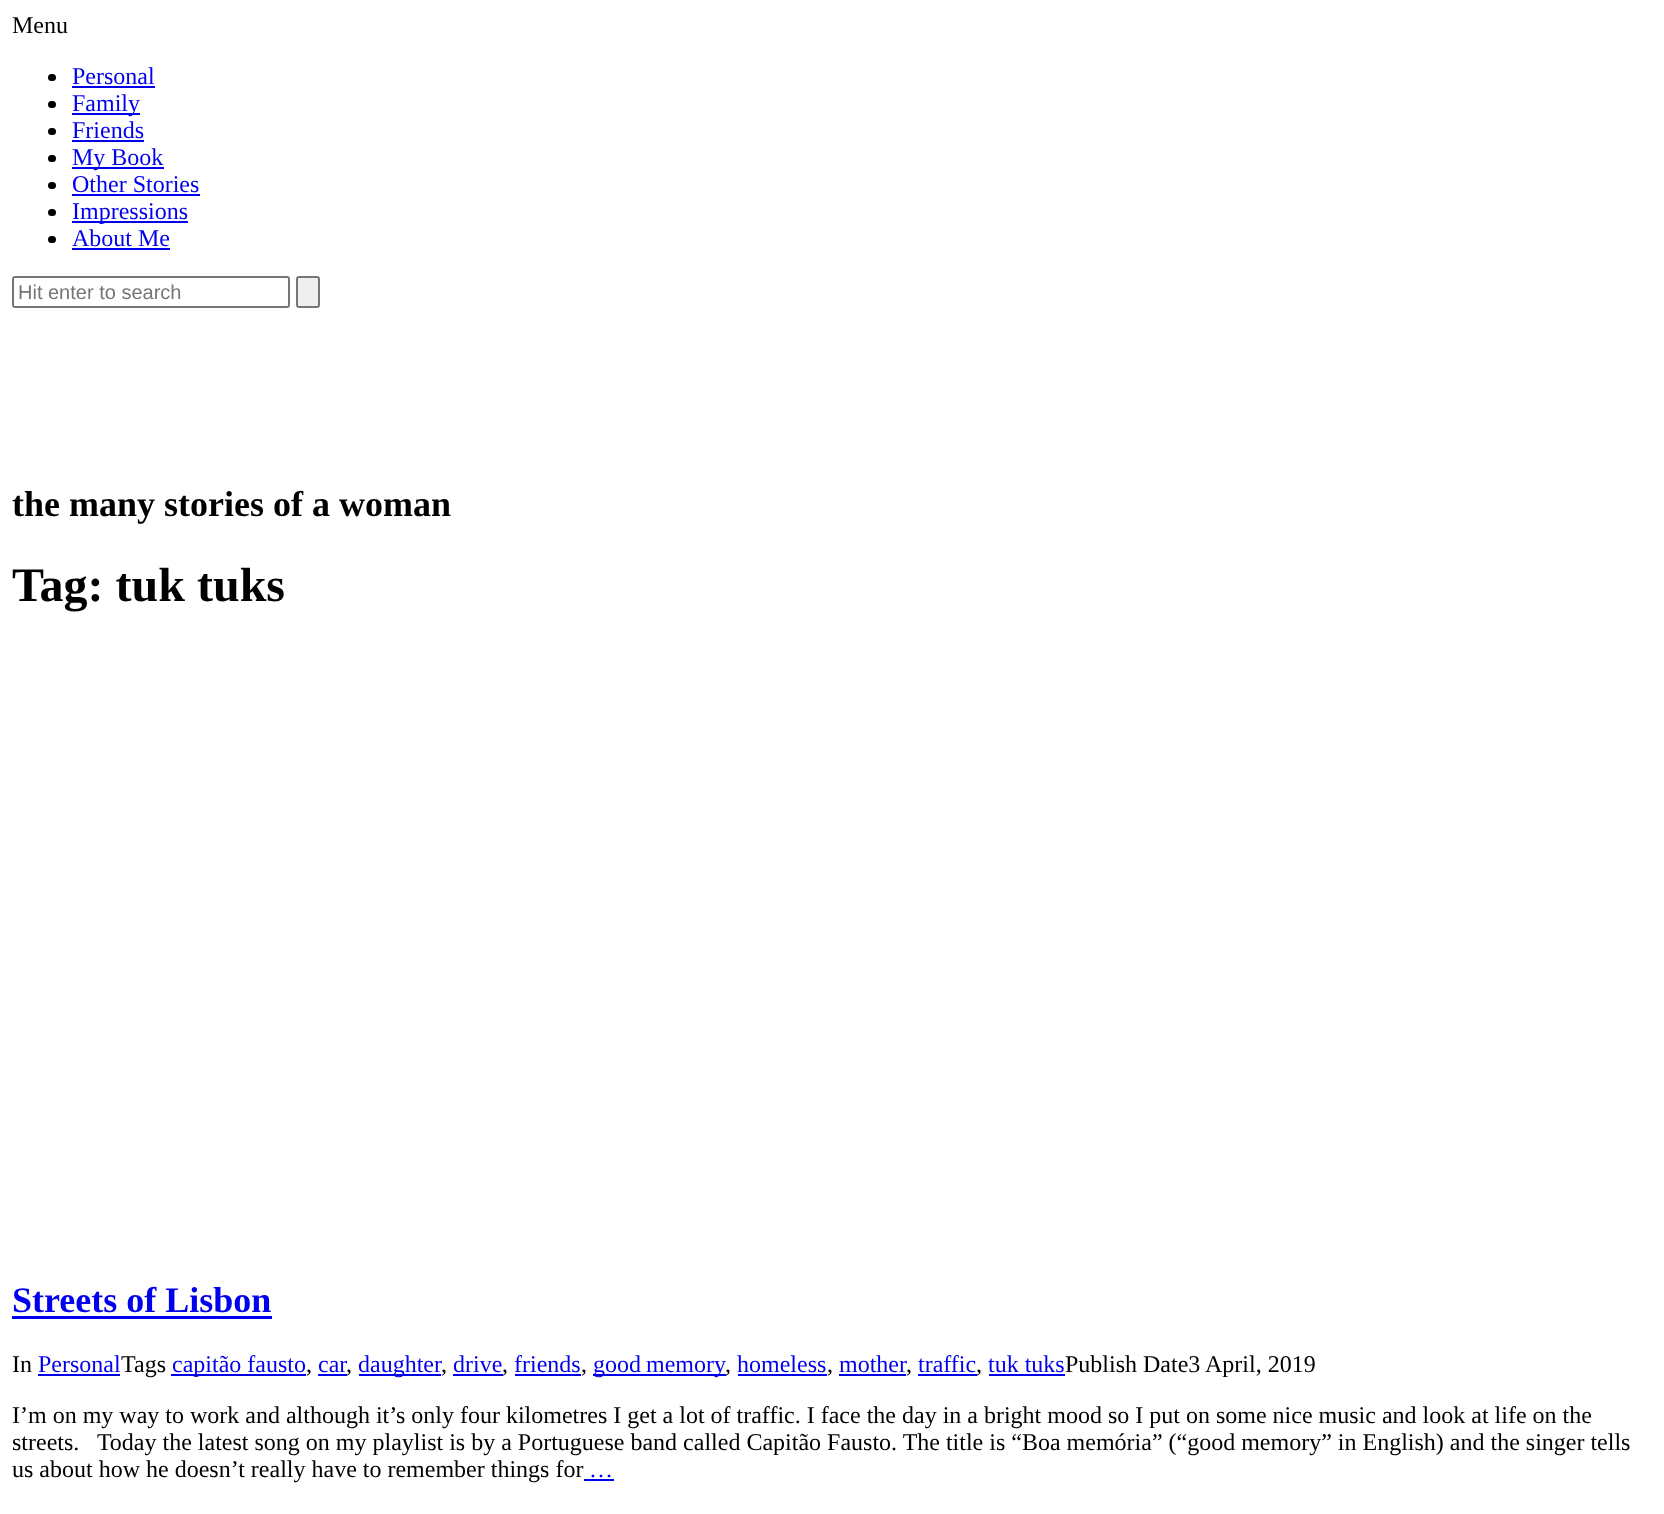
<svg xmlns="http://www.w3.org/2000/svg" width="1664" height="1514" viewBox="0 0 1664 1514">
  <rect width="100%" height="100%" fill="#fff"/>
  <rect x="48" y="74" width="8" height="7" rx="3.5" fill="#000"/>
  <path d="M72 86h83v2H72z" fill="#00e"/>
  <rect x="48" y="101" width="8" height="7" rx="3.5" fill="#000"/>
  <path d="M72 113h68v2H72z" fill="#00e"/>
  <rect x="48" y="128" width="8" height="7" rx="3.5" fill="#000"/>
  <path d="M72 140h72v2H72z" fill="#00e"/>
  <rect x="48" y="155" width="8" height="7" rx="3.5" fill="#000"/>
  <path d="M72 167h92v2H72z" fill="#00e"/>
  <rect x="48" y="182" width="8" height="7" rx="3.5" fill="#000"/>
  <path d="M72 194h128v2H72z" fill="#00e"/>
  <rect x="48" y="209" width="8" height="7" rx="3.5" fill="#000"/>
  <path d="M72 221h116v2H72z" fill="#00e"/>
  <rect x="48" y="236" width="8" height="7" rx="3.5" fill="#000"/>
  <path d="M72 248h98v2H72z" fill="#00e"/>
  <rect x="13" y="277" width="276" height="30" rx="2" fill="none" stroke="#767676" stroke-width="2"/>
  <rect x="297" y="277" width="22" height="30" rx="2" fill="#efefef" stroke="#767676" stroke-width="2"/>
  <path d="M12 1316h260v3H12z" fill="#00e"/>
  <path d="M38 1374h82v2H38z" fill="#00e"/>
  <path d="M171 1374h135v2H171z" fill="#00e"/>
  <path d="M318 1374h29v2H318z" fill="#00e"/>
  <path d="M359 1374h82v2H359z" fill="#00e"/>
  <path d="M453 1374h50v2H453z" fill="#00e"/>
  <path d="M515 1374h66v2H515z" fill="#00e"/>
  <path d="M593 1374h133v2H593z" fill="#00e"/>
  <path d="M738 1374h89v2H738z" fill="#00e"/>
  <path d="M839 1374h67v2H839z" fill="#00e"/>
  <path d="M918 1374h59v2H918z" fill="#00e"/>
  <path d="M989 1374h76v2H989z" fill="#00e"/>
  <path d="M584 1479h30v2H584z" fill="#00e"/>
  <text x="12" y="33" font-family="Liberation Serif" font-size="24" fill="#000">Menu</text>
  <g font-family="Liberation Serif" font-size="24" fill="#00e">
    <text x="72" y="84">Personal</text>
    <text x="72" y="111">Family</text>
    <text x="72" y="138">Friends</text>
    <text x="72" y="165">My Book</text>
    <text x="72" y="192">Other Stories</text>
    <text x="72" y="219">Impressions</text>
    <text x="72" y="246">About Me</text>
  </g>
  <text x="18" y="299" font-family="Liberation Sans" font-size="20" fill="#757575">Hit enter to search</text>
  <text x="12" y="516" font-family="Liberation Serif" font-size="36" font-weight="bold" fill="#000">the many stories of a woman</text>
  <text x="12" y="601" font-family="Liberation Serif" font-size="48" font-weight="bold" fill="#000">Tag: tuk tuks</text>
  <text x="12" y="1312" font-family="Liberation Serif" font-size="36" font-weight="bold" fill="#00e">Streets of Lisbon</text>
  <text x="12" y="1372" font-family="Liberation Serif" font-size="24" fill="#000">In</text>
  <text x="38" y="1372" font-family="Liberation Serif" font-size="24" fill="#00e">Personal</text>
  <text x="121" y="1372" font-family="Liberation Serif" font-size="24" fill="#000">Tags</text>
  <text x="172" y="1372" font-family="Liberation Serif" font-size="24" fill="#00e">capitão fausto</text>
  <text x="306" y="1372" font-family="Liberation Serif" font-size="24" fill="#000">,</text>
  <text x="318" y="1372" font-family="Liberation Serif" font-size="24" fill="#00e">car</text>
  <text x="346" y="1372" font-family="Liberation Serif" font-size="24" fill="#000">,</text>
  <text x="358" y="1372" font-family="Liberation Serif" font-size="24" fill="#00e">daughter</text>
  <text x="441" y="1372" font-family="Liberation Serif" font-size="24" fill="#000">,</text>
  <text x="453" y="1372" font-family="Liberation Serif" font-size="24" fill="#00e">drive</text>
  <text x="502" y="1372" font-family="Liberation Serif" font-size="24" fill="#000">,</text>
  <text x="514" y="1372" font-family="Liberation Serif" font-size="24" fill="#00e">friends</text>
  <text x="581" y="1372" font-family="Liberation Serif" font-size="24" fill="#000">,</text>
  <text x="593" y="1372" word-spacing="-1" font-family="Liberation Serif" font-size="24" fill="#00e">good memory</text>
  <text x="725" y="1372" font-family="Liberation Serif" font-size="24" fill="#000">,</text>
  <text x="737" y="1372" font-family="Liberation Serif" font-size="24" fill="#00e">homeless</text>
  <text x="827" y="1372" font-family="Liberation Serif" font-size="24" fill="#000">,</text>
  <text x="839" y="1372" font-family="Liberation Serif" font-size="24" fill="#00e">mother</text>
  <text x="906" y="1372" font-family="Liberation Serif" font-size="24" fill="#000">,</text>
  <text x="918" y="1372" font-family="Liberation Serif" font-size="24" fill="#00e">traffic</text>
  <text x="976" y="1372" font-family="Liberation Serif" font-size="24" fill="#000">,</text>
  <text x="988" y="1372" font-family="Liberation Serif" font-size="24" fill="#00e">tuk tuks</text>
  <g font-family="Liberation Serif" font-size="24" fill="#000">
    <text x="1065" y="1372">Publish Date3 April, 2019</text>
    <text x="12" y="1423">I’m on my way to work and although it’s only four kilometres I get a lot of traffic. I face the day in a bright mood so I put on some nice music and look at life on the</text>
    <text x="12" y="1450" xml:space="preserve">streets.   Today the latest song on my playlist is by a Portuguese band called Capitão Fausto. The title is “Boa memória” (“good memory” in English) and the singer tells</text>
    <text x="12" y="1477">us about how he doesn’t really have to remember things for</text>
  </g>
  <text x="589" y="1477" font-family="Liberation Serif" font-size="24" fill="#00e">…</text>
</svg>
